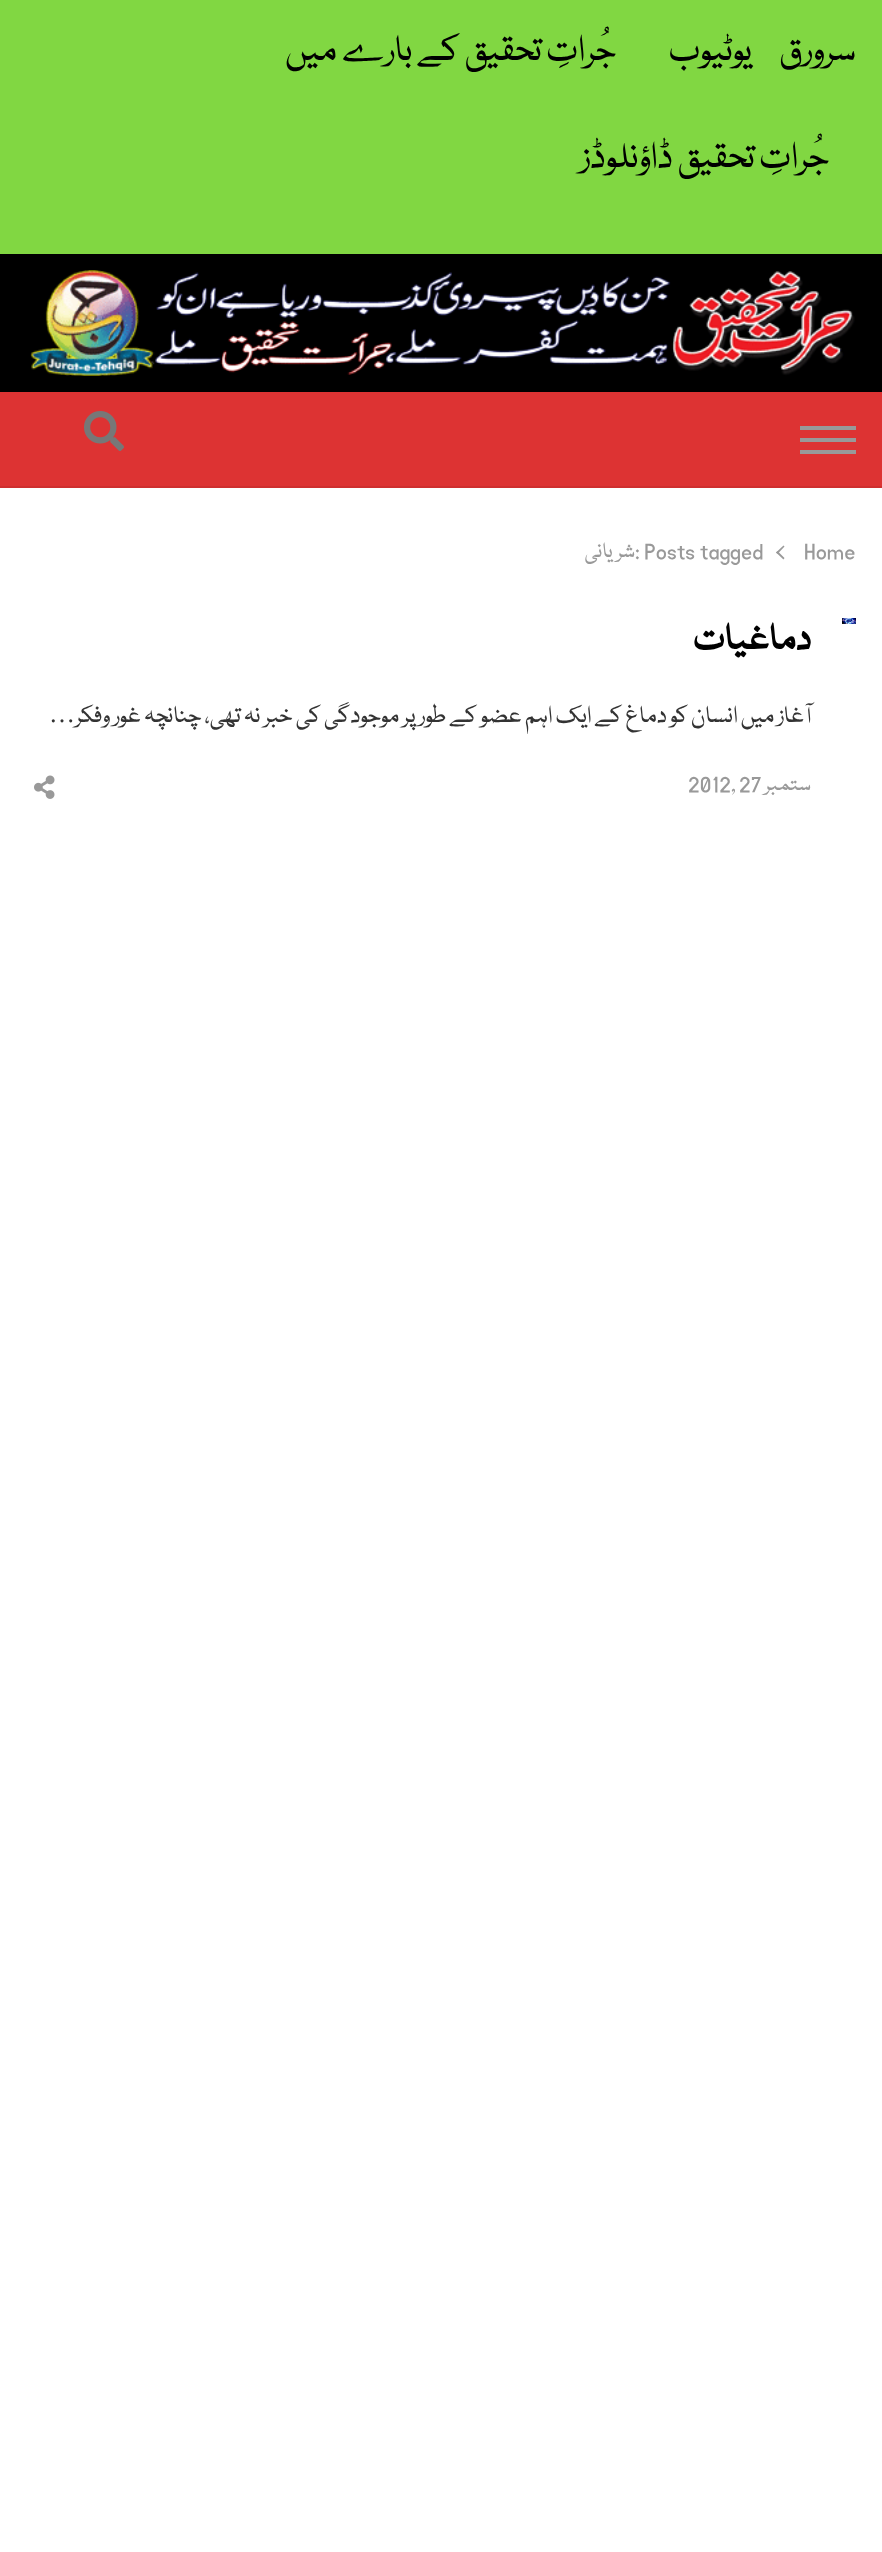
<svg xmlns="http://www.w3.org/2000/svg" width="882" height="2552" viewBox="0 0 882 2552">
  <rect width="100%" height="100%" fill="#fff"/>
  <path d="M0 0h882v254H0z" fill="#81d742"/>
  <path d="M0 254h882v138H0z" fill="#000"/>
  <image x="30" y="270" width="825" height="106" href="img/1.png"/>
  <path d="M0 392h882v94H0z" fill="#d33"/>
  <path d="M0 486h882v2H0z" fill="#ce2f2f"/>
  <path d="M800 438h56v4H800z" fill="#999"/>
  <path d="M800 426h56v4H800z" fill="#999"/>
  <path d="M800 450h56v4H800z" fill="#999"/>
  <image x="84" y="411" width="40" height="40" href="img/2.png"/>
  <path d="M777.5 551L784.5 558L783.5 559.5L776 552.5Z" fill="#999"/>
  <path d="M783.5 545.5L784.5 546.5L777.5 554L776 552.5Z" fill="#999"/>
  <image x="842" y="618" width="14" height="6" href="img/3.png"/>
  <image x="34" y="775" width="21" height="24" href="img/4.png"/>
  <g font-family="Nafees" font-size="40" direction="rtl" fill="#000">
    <text x="856" y="60">سرورق</text>
    <text x="752" y="60">یوٹیوب</text>
    <text x="616" y="60">جُراتِ تحقیق کے بارے میں</text>
    <text x="829" y="167">جُراتِ تحقیق ڈاؤنلوڈز</text>
  </g>
  <g font-family="Nafees" font-size="23.5" fill="#999">
    <text x="804" y="557">Home</text>
    <text x="635" y="557">: Posts tagged</text>
  </g>
  <text x="635" y="557" font-family="Nafees" font-size="23.5" direction="rtl" fill="#999">شریانی</text>
  <text x="811" y="649" font-family="Nafees" font-size="40" font-weight="bold" direction="rtl" fill="#000">دماغیات</text>
  <text x="75" y="722" font-family="Liberation Serif" font-size="26" direction="rtl" fill="#333">…</text>
  <text x="811" y="722" font-family="Nafees" font-size="26" direction="rtl" fill="#333">آغاز میں انسان کو دماغ کے ایک اہم عضو کے طور پر موجودگی کی خبر نہ تھی، چنانچہ غور وفکر</text>
  <text x="811" y="790" font-family="Nafees" font-size="23.5" direction="rtl" fill="#999">ستمبر</text>
  <g font-family="Nafees" font-size="23.5" fill="#999">
    <text x="739" y="790">27</text>
    <text x="688" y="790">2012,</text>
  </g>
</svg>
